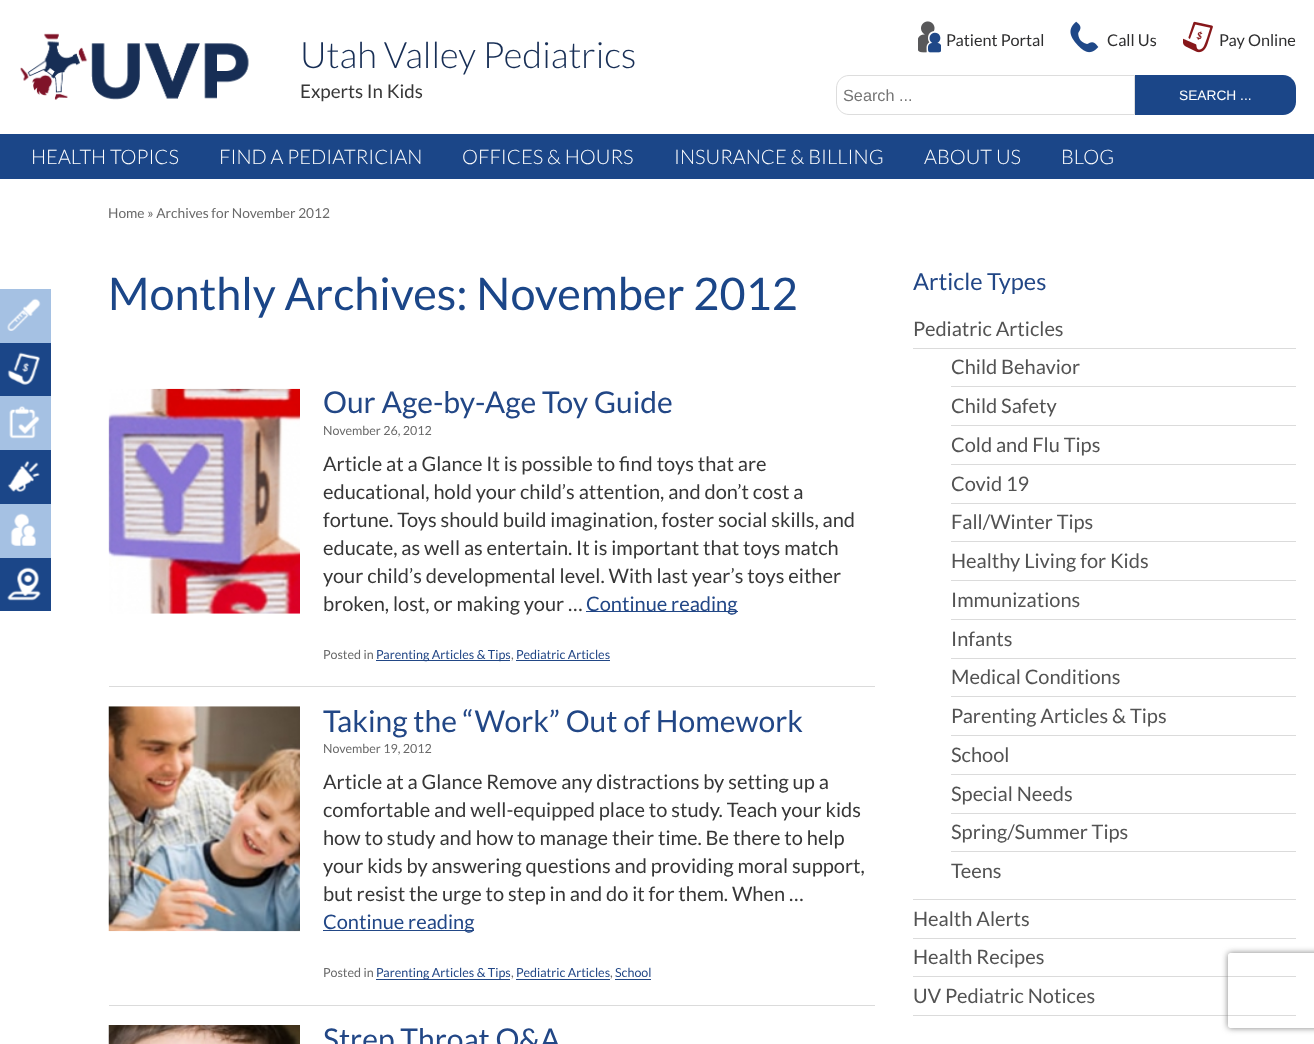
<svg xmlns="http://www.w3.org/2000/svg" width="1314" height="1044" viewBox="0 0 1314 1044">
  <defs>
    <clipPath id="clip1"><path d="M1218 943H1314V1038H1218ZM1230.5 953H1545.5C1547 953 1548 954 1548 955.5V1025.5C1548 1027 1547 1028 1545.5 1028H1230.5C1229 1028 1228 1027 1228 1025.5V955.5C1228 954 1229 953 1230.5 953Z" clip-rule="evenodd"/></clipPath>
  </defs>
  <rect width="100%" height="100%" fill="#fff"/>
  <image x="20" y="33" width="229" height="67" href="img/1.png"/>
  <image x="918" y="21" width="23" height="32" href="img/2.png"/>
  <image x="1070" y="21" width="29" height="32" href="img/3.png"/>
  <image x="1183" y="21" width="30" height="32" href="img/4.png"/>
  <path d="M849 75.5H1134.5V114.5H849C842 114.5 836.5 109 836.5 102V88C836.5 81 842 75.5 849 75.5Z" fill="none" stroke="#ddd"/>
  <path d="M1135 75H1283C1290 75 1296 81 1296 88V102C1296 109 1290 115 1283 115H1135Z" fill="#1b4688"/>
  <path d="M0 134h1314v45H0z" fill="#1b4688"/>
  <path d="M0 289h51v54H0z" fill="#a5c1e3"/>
  <image x="7" y="298" width="34" height="33" href="img/5.png"/>
  <path d="M0 343h51v53H0z" fill="#1b4688"/>
  <image x="7" y="352" width="33" height="33" href="img/6.png"/>
  <path d="M0 396h51v54H0z" fill="#a5c1e3"/>
  <image x="9" y="406" width="31" height="33" href="img/7.png"/>
  <path d="M0 450h51v54H0z" fill="#1b4688"/>
  <image x="7" y="460" width="33" height="32" href="img/8.png"/>
  <path d="M0 504h51v54H0z" fill="#a5c1e3"/>
  <image x="10" y="513" width="26" height="33" href="img/9.png"/>
  <path d="M0 558h51v53H0z" fill="#1b4688"/>
  <image x="7" y="567" width="34" height="34" href="img/10.png"/>
  <path d="M109 686h766v1H109z" fill="#dbdbdb"/>
  <image x="108" y="388" width="192" height="226" href="img/11.png"/>
  <path d="M586 611h152v1H586z" fill="#224786"/>
  <path d="M376 660h134v1H376z" fill="#224786"/>
  <path d="M516 660h94v1H516z" fill="#224786"/>
  <path d="M109 1005h766v1H109z" fill="#dbdbdb"/>
  <image x="108" y="706" width="192" height="226" href="img/12.png"/>
  <path d="M323 930h151v1H323z" fill="#224786"/>
  <path d="M376 979h134v1H376z" fill="#224786"/>
  <path d="M516 979h94v1H516z" fill="#224786"/>
  <path d="M615 979h36v1H615z" fill="#224786"/>
  <image x="108" y="1025" width="192" height="19" href="img/13.png"/>
  <path d="M913 899h383v1H913z" fill="#dbdbdb"/>
  <path d="M913 348h383v1H913z" fill="#dbdbdb"/>
  <path d="M951 386h345v1H951z" fill="#dbdbdb"/>
  <path d="M951 425h345v1H951z" fill="#dbdbdb"/>
  <path d="M951 464h345v1H951z" fill="#dbdbdb"/>
  <path d="M951 503h345v1H951z" fill="#dbdbdb"/>
  <path d="M951 541h345v1H951z" fill="#dbdbdb"/>
  <path d="M951 580h345v1H951z" fill="#dbdbdb"/>
  <path d="M951 619h345v1H951z" fill="#dbdbdb"/>
  <path d="M951 658h345v1H951z" fill="#dbdbdb"/>
  <path d="M951 696h345v1H951z" fill="#dbdbdb"/>
  <path d="M951 735h345v1H951z" fill="#dbdbdb"/>
  <path d="M951 774h345v1H951z" fill="#dbdbdb"/>
  <path d="M951 813h345v1H951z" fill="#dbdbdb"/>
  <path d="M951 851h345v1H951z" fill="#dbdbdb"/>
  <path d="M913 938h383v1H913z" fill="#dbdbdb"/>
  <path d="M913 976h383v1H913z" fill="#dbdbdb"/>
  <path d="M913 1015h383v1H913z" fill="#dbdbdb"/>
  <g clip-path="url(#clip1)">
    <rect x="1228" y="953" width="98" height="75" rx="2.5" fill="#808080" filter="blur(3px)"/>
  </g>
  <text x="300" y="68" font-family="Lato" font-size="36.25" font-weight="300" fill="#172e55">Utah Valley Pediatrics</text>
  <text x="300" y="98" font-family="Lato" font-size="18.75" fill="#373737">Experts In Kids</text>
  <g font-family="Lato" font-size="16.25" fill="#2e2e2f">
    <text x="946" y="46">Patient Portal</text>
    <text x="1107" y="46">Call Us</text>
    <text x="1219" y="46">Pay Online</text>
  </g>
  <text x="843" y="101" font-family="Liberation Sans" font-size="16.25" fill="#757575">Search ...</text>
  <text x="1179" y="100" font-family="Liberation Sans" font-size="13.75" fill="#fff">SEARCH ...</text>
  <g font-family="Lato" font-size="20" font-weight="300" fill="#fff">
    <text x="31" y="164">HEALTH TOPICS</text>
    <text x="219" y="164">FIND A PEDIATRICIAN</text>
    <text x="462" y="164">OFFICES &amp; HOURS</text>
    <text x="674" y="164">INSURANCE &amp; BILLING</text>
    <text x="924" y="164">ABOUT US</text>
    <text x="1061" y="164">BLOG</text>
  </g>
  <text x="108" y="218" font-family="Lato" font-size="13.75" fill="#696969">Home » Archives for November 2012</text>
  <text x="108" y="310" font-family="Lato" font-size="45" fill="#1b4688">Monthly Archives: November 2012</text>
  <text x="323" y="413" font-family="Lato" font-size="30" fill="#224786">Our Age-by-Age Toy Guide</text>
  <text x="323" y="435" font-family="Lato" font-size="12.5" fill="#696969">November 26, 2012</text>
  <g font-family="Lato" font-size="20" fill="#373737">
    <text x="323" y="471">Article at a Glance It is possible to find toys that are</text>
    <text x="323" y="499">educational, hold your child’s attention, and don’t cost a</text>
    <text x="323" y="527">fortune. Toys should build imagination, foster social skills, and</text>
    <text x="323" y="555">educate, as well as entertain. It is important that toys match</text>
    <text x="323" y="583">your child’s developmental level. With last year’s toys either</text>
    <text x="323" y="611">broken, lost, or making your …</text>
  </g>
  <text x="586" y="611" font-family="Lato" font-size="20" fill="#224786">Continue reading</text>
  <text x="323" y="659" font-family="Lato" font-size="12.5" fill="#696969">Posted in</text>
  <text x="376" y="659" font-family="Lato" font-size="12.5" fill="#224786">Parenting Articles &amp; Tips</text>
  <text x="511" y="659" font-family="Lato" font-size="12.5" fill="#696969">,</text>
  <text x="516" y="659" font-family="Lato" font-size="12.5" fill="#224786">Pediatric Articles</text>
  <text x="323" y="732" font-family="Lato" font-size="30" fill="#224786">Taking the “Work” Out of Homework</text>
  <text x="323" y="753" font-family="Lato" font-size="12.5" fill="#696969">November 19, 2012</text>
  <g font-family="Lato" font-size="20" fill="#373737">
    <text x="323" y="789">Article at a Glance Remove any distractions by setting up a</text>
    <text x="323" y="817">comfortable and well-equipped place to study. Teach your kids</text>
    <text x="323" y="845">how to study and how to manage their time. Be there to help</text>
    <text x="323" y="873">your kids by answering questions and providing moral support,</text>
    <text x="323" y="901">but resist the urge to step in and do it for them. When …</text>
  </g>
  <text x="323" y="929" font-family="Lato" font-size="20" fill="#224786">Continue reading</text>
  <text x="323" y="977" font-family="Lato" font-size="12.5" fill="#696969">Posted in</text>
  <text x="376" y="977" font-family="Lato" font-size="12.5" fill="#224786">Parenting Articles &amp; Tips</text>
  <text x="511" y="977" font-family="Lato" font-size="12.5" fill="#696969">,</text>
  <text x="516" y="977" font-family="Lato" font-size="12.5" fill="#224786">Pediatric Articles</text>
  <text x="610" y="977" font-family="Lato" font-size="12.5" fill="#696969">,</text>
  <text x="615" y="977" font-family="Lato" font-size="12.5" fill="#224786">School</text>
  <text x="323" y="1050" font-family="Lato" font-size="30" fill="#224786">Strep Throat Q&amp;A</text>
  <text x="913" y="290" font-family="Lato" font-size="23.5" fill="#224786">Article Types</text>
  <g font-family="Lato" font-size="20" fill="#535353">
    <text x="913" y="336">Pediatric Articles</text>
    <text x="951" y="374">Child Behavior</text>
    <text x="951" y="413">Child Safety</text>
    <text x="951" y="452">Cold and Flu Tips</text>
    <text x="951" y="491">Covid 19</text>
    <text x="951" y="529">Fall/Winter Tips</text>
    <text x="951" y="568">Healthy Living for Kids</text>
    <text x="951" y="607">Immunizations</text>
    <text x="951" y="646">Infants</text>
    <text x="951" y="684">Medical Conditions</text>
    <text x="951" y="723">Parenting Articles &amp; Tips</text>
    <text x="951" y="762">School</text>
    <text x="951" y="801">Special Needs</text>
    <text x="951" y="839">Spring/Summer Tips</text>
    <text x="951" y="878">Teens</text>
    <text x="913" y="926">Health Alerts</text>
    <text x="913" y="964">Health Recipes</text>
    <text x="913" y="1003">UV Pediatric Notices</text>
  </g>
</svg>
